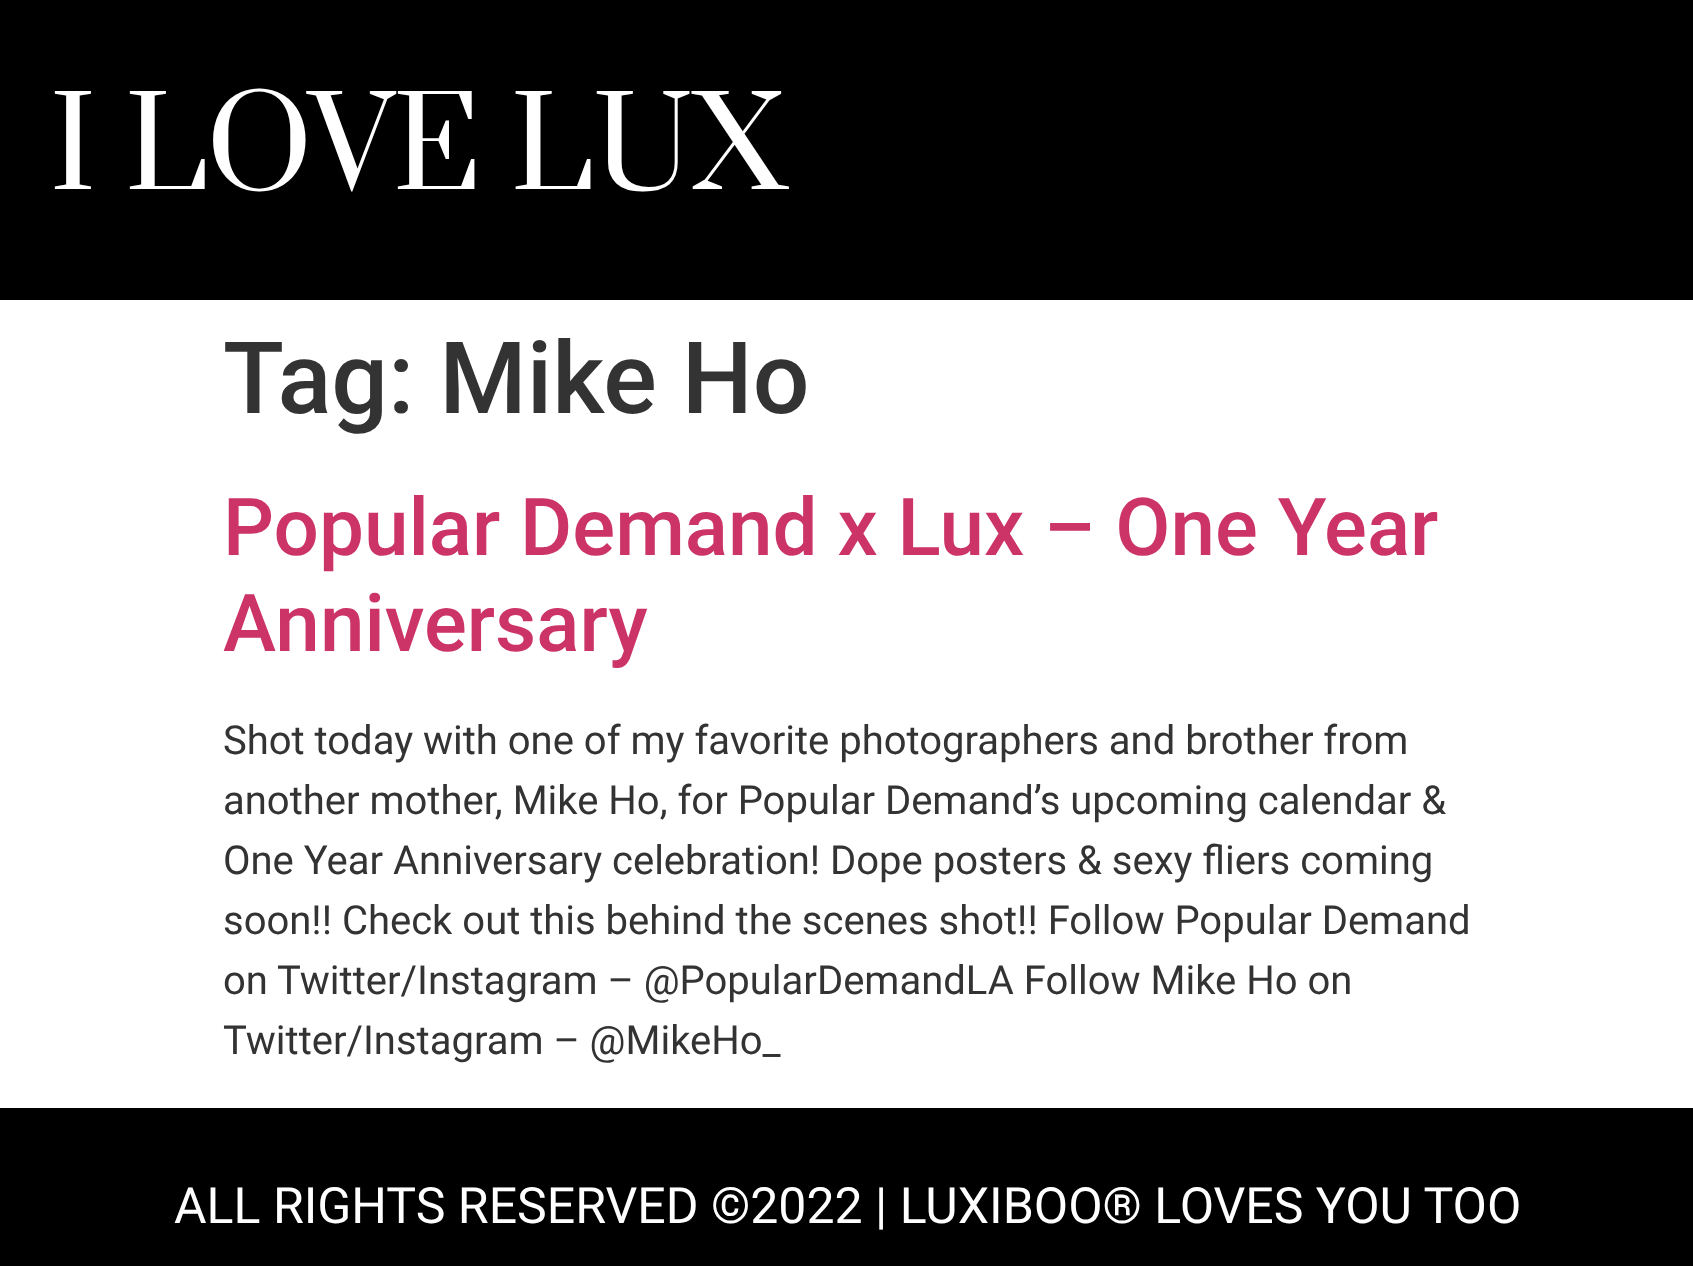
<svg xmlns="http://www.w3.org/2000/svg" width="1693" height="1266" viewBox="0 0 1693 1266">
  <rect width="100%" height="100%" fill="#fff"/>
  <path d="M0 0h1693v300H0z" fill="#000"/>
  <path d="M0 1108h1693v158H0z" fill="#000"/>
  <text x="50" y="189" font-family="Prata" font-size="122.5" fill="#fff">I LOVE LUX</text>
  <text x="223" y="413" font-family="Roboto" font-size="100" font-weight="500" fill="#333">Tag: Mike Ho</text>
  <g font-family="Roboto" font-size="80" font-weight="500" fill="#c36">
    <text x="223" y="555">Popular Demand x Lux – One Year</text>
    <text x="223" y="651">Anniversary</text>
  </g>
  <g font-family="Roboto" font-size="40" fill="#333">
    <text x="223" y="754">Shot today with one of my favorite photographers and brother from</text>
    <text x="223" y="814">another mother, Mike Ho, for Popular Demand’s upcoming calendar &amp;</text>
    <text x="223" y="874">One Year Anniversary celebration! Dope posters &amp; sexy fliers coming</text>
    <text x="223" y="934">soon!! Check out this behind the scenes shot!! Follow Popular Demand</text>
    <text x="223" y="994">on Twitter/Instagram – @PopularDemandLA Follow Mike Ho on</text>
    <text x="223" y="1054">Twitter/Instagram – @MikeHo_</text>
  </g>
  <text x="174" y="1223" font-family="Roboto" font-size="50" fill="#fff">ALL RIGHTS RESERVED ©2022 | LUXIBOO® LOVES YOU TOO</text>
</svg>
